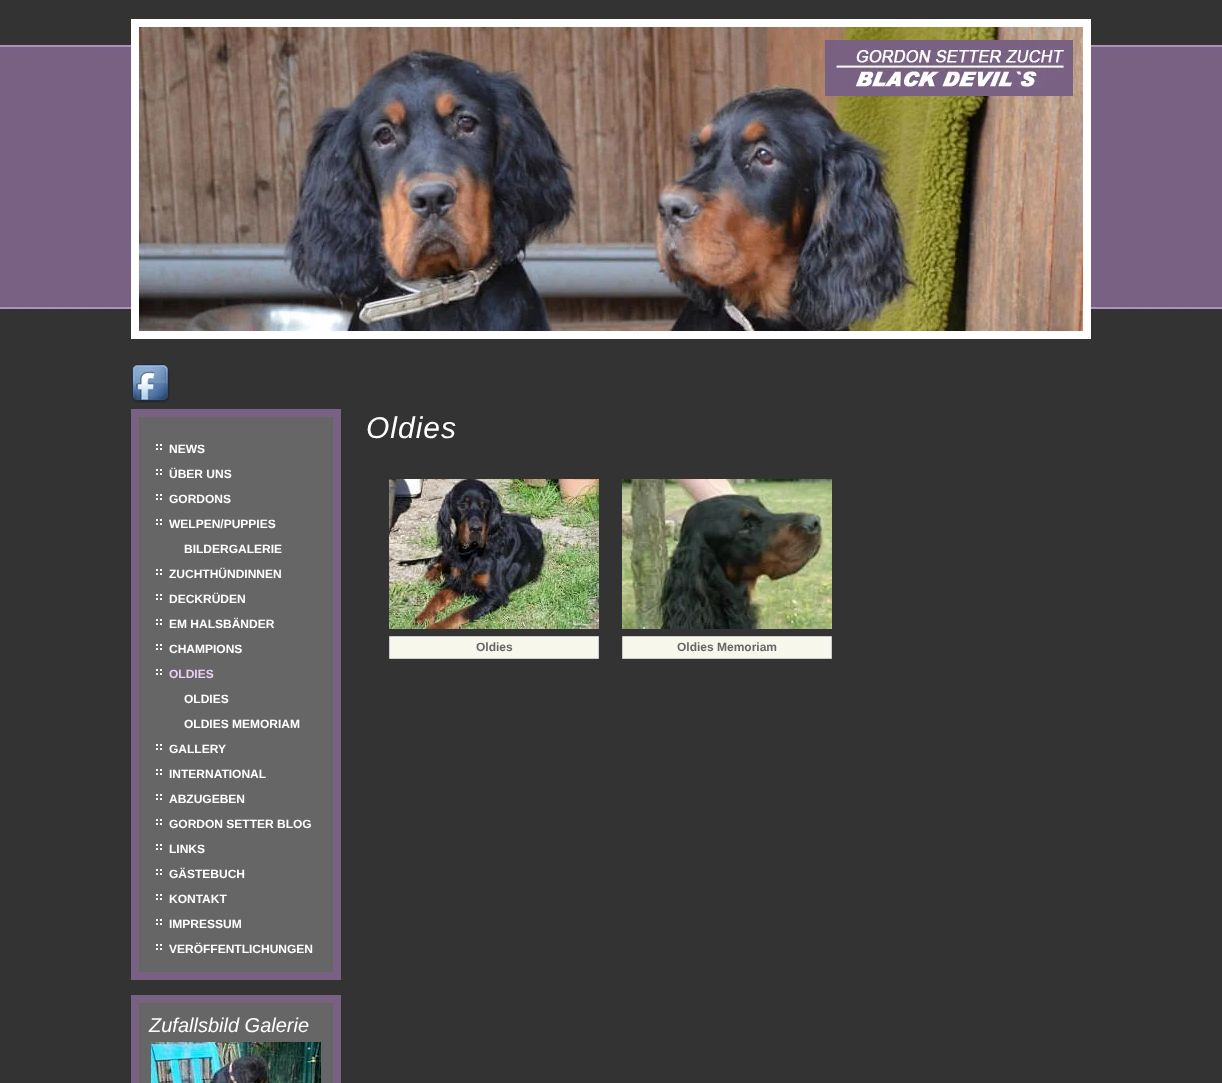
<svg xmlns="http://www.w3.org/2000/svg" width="1222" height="1083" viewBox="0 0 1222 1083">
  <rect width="100%" height="100%" fill="#333"/>
  <image x="0" y="44" width="1222" height="265" href="img/1.png"/>
  <path d="M135 23h952v312H135z" fill="none" stroke="#fff" stroke-width="8"/>
  <image x="139" y="27" width="944" height="304" href="img/2.png"/>
  <image x="825" y="40" width="248" height="56" href="img/3.png"/>
  <image x="132" y="364" width="38" height="39" href="img/4.png"/>
  <path d="M135 413h202v563H135z" fill="#666" stroke="#796184" stroke-width="8"/>
  <image x="156" y="444" width="6" height="6" href="img/5.png"/>
  <image x="156" y="469" width="6" height="6" href="img/5.png"/>
  <image x="156" y="494" width="6" height="6" href="img/5.png"/>
  <image x="156" y="519" width="6" height="6" href="img/5.png"/>
  <image x="156" y="569" width="6" height="6" href="img/5.png"/>
  <image x="156" y="594" width="6" height="6" href="img/5.png"/>
  <image x="156" y="619" width="6" height="6" href="img/5.png"/>
  <image x="156" y="644" width="6" height="6" href="img/5.png"/>
  <image x="156" y="669" width="6" height="6" href="img/5.png"/>
  <image x="156" y="744" width="6" height="6" href="img/5.png"/>
  <image x="156" y="769" width="6" height="6" href="img/5.png"/>
  <image x="156" y="794" width="6" height="6" href="img/5.png"/>
  <image x="156" y="819" width="6" height="6" href="img/5.png"/>
  <image x="156" y="844" width="6" height="6" href="img/5.png"/>
  <image x="156" y="869" width="6" height="6" href="img/5.png"/>
  <image x="156" y="894" width="6" height="6" href="img/5.png"/>
  <image x="156" y="919" width="6" height="6" href="img/5.png"/>
  <image x="156" y="944" width="6" height="6" href="img/5.png"/>
  <path d="M135 999h202v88H135z" fill="#666" stroke="#796184" stroke-width="8"/>
  <image x="151" y="1042" width="170" height="41" href="img/6.png"/>
  <image x="389" y="479" width="210" height="150" href="img/7.png"/>
  <path d="M389.5 636.5h209v22H389.5z" fill="#f8f7ec" stroke="#ccc"/>
  <image x="622" y="479" width="210" height="150" href="img/8.png"/>
  <path d="M622.5 636.5h209v22H622.5z" fill="#f8f7ec" stroke="#ccc"/>
  <g font-family="Liberation Sans" font-size="12" font-weight="bold" fill="#fff">
    <text x="169" y="453">NEWS</text>
    <text x="169" y="478">ÜBER UNS</text>
    <text x="169" y="503">GORDONS</text>
    <text x="169" y="528">WELPEN/PUPPIES</text>
    <text x="184" y="553">BILDERGALERIE</text>
    <text x="169" y="578">ZUCHTHÜNDINNEN</text>
    <text x="169" y="603">DECKRÜDEN</text>
    <text x="169" y="628">EM HALSBÄNDER</text>
    <text x="169" y="653">CHAMPIONS</text>
  </g>
  <text x="169" y="678" font-family="Liberation Sans" font-size="12" font-weight="bold" fill="#e9cff5">OLDIES</text>
  <g font-family="Liberation Sans" font-size="12" font-weight="bold" fill="#fff">
    <text x="184" y="703">OLDIES</text>
    <text x="184" y="728">OLDIES MEMORIAM</text>
    <text x="169" y="753">GALLERY</text>
    <text x="169" y="778">INTERNATIONAL</text>
    <text x="169" y="803">ABZUGEBEN</text>
    <text x="169" y="828">GORDON SETTER BLOG</text>
    <text x="169" y="853">LINKS</text>
    <text x="169" y="878">GÄSTEBUCH</text>
    <text x="169" y="903">KONTAKT</text>
    <text x="169" y="928">IMPRESSUM</text>
    <text x="169" y="953">VERÖFFENTLICHUNGEN</text>
  </g>
  <text x="149" y="1032" font-family="Liberation Sans" font-size="20" font-style="italic" fill="#fff">Zufallsbild Galerie</text>
  <text x="366" y="438" font-family="Liberation Sans" font-size="30" font-style="italic" letter-spacing="1" fill="#fff">Oldies</text>
  <g font-family="Liberation Sans" font-size="12" font-weight="bold" fill="#666">
    <text x="476" y="651">Oldies</text>
    <text x="677" y="651">Oldies Memoriam</text>
  </g>
</svg>
